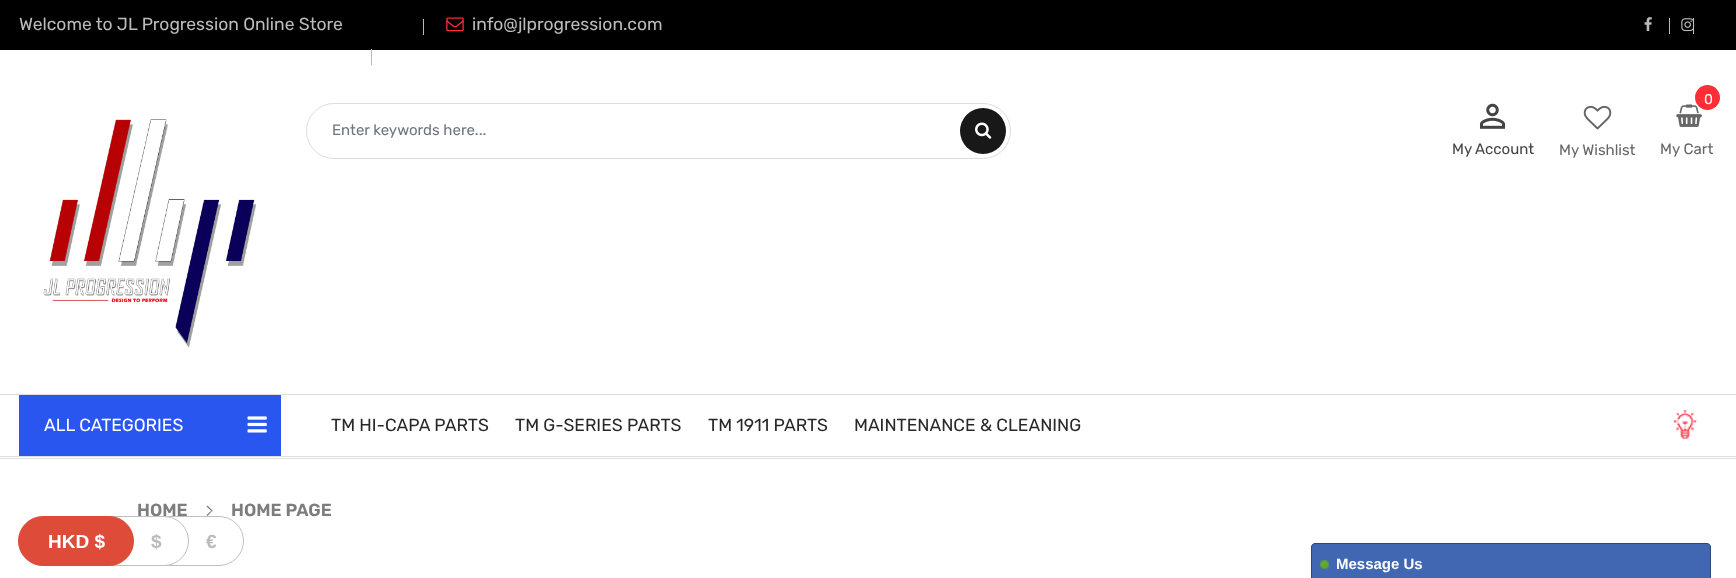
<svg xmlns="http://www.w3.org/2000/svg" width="1736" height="578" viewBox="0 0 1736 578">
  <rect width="100%" height="100%" fill="#fff"/>
  <path d="M0 458h1736v1H0z" fill="#ddd"/>
  <path d="M0 0h1736v50H0z" fill="#000"/>
  <path d="M423 19h1v16H423z" fill="#bbb"/>
  <image x="446" y="17" width="18" height="15" href="img/1.png"/>
  <path d="M371 49h1v16H371z" fill="#bbb"/>
  <image x="1644" y="17" width="8" height="15" href="img/2.png"/>
  <image x="1681" y="18" width="14" height="14" href="img/3.png"/>
  <path d="M1669 18h1v16H1669z" fill="#bbb"/>
  <path d="M1693 18h1v16H1693z" fill="#bbb"/>
  <image x="43" y="119" width="213" height="229" href="img/4.png"/>
  <rect x="306.5" y="103.5" width="704" height="55" rx="27.5" fill="none" stroke="#ddd"/>
  <circle cx="983" cy="131" r="23" fill="#181818"/>
  <image x="975" y="122" width="17" height="17" href="img/5.png"/>
  <image x="1479" y="103" width="27" height="26" href="img/6.png"/>
  <image x="1583" y="105" width="29" height="25" href="img/7.png"/>
  <image x="1676" y="104" width="26" height="23" href="img/8.png"/>
  <circle cx="1707.5" cy="97.5" r="12.5" fill="#ff2d37"/>
  <path d="M0 394h1736v1H0z" fill="#ddd"/>
  <path d="M0 456h1736v1H0z" fill="#ddd"/>
  <path d="M19 395h262v61H19z" fill="#2a56f0"/>
  <image x="247" y="416" width="20" height="17" href="img/9.png"/>
  <image x="1673" y="410" width="24" height="29" href="img/10.png"/>
  <path d="M207.5 505.5L212.5 510.5L212 511.5L206.5 506.5Z" fill="#7d7d7d"/>
  <path d="M212 510L212.5 510.5L207.5 516L206.5 515Z" fill="#7d7d7d"/>
  <path d="M1315 543.5H1707C1709 543.5 1710.5 545 1710.5 547V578.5H1311.5V547C1311.5 545 1313 543.5 1315 543.5Z" fill="#4267b2" stroke="#29487d"/>
  <image x="1319" y="559" width="10" height="10" href="img/11.png"/>
  <g font-family="Rubik" font-size="17.5" fill="#bbb">
    <text x="19" y="30">Welcome to JL Progression Online Store</text>
    <text x="472" y="30">info@jlprogression.com</text>
  </g>
  <text x="332" y="135" font-family="Rubik" font-size="15" fill="#6c757d">Enter keywords here...</text>
  <text x="1452" y="154" font-family="Rubik" font-size="15" fill="#444">My Account</text>
  <text x="1559" y="155" font-family="Rubik" font-size="15" fill="#666">My Wishlist</text>
  <text x="1704" y="104" font-family="Rubik" font-size="14" fill="#fff">0</text>
  <text x="1660" y="154" font-family="Rubik" font-size="15" fill="#666">My Cart</text>
  <text x="44" y="431" font-family="Rubik" font-size="17.5" fill="#fff">ALL CATEGORIES</text>
  <g font-family="Rubik" font-size="17.5" fill="#282828">
    <text x="331" y="431">TM HI-CAPA PARTS</text>
    <text x="515" y="431">TM G-SERIES PARTS</text>
    <text x="708" y="431">TM 1911 PARTS</text>
    <text x="854" y="431">MAINTENANCE &amp; CLEANING</text>
  </g>
  <g font-family="Rubik" font-size="17.5" font-weight="600" fill="#7d7d7d">
    <text x="137" y="516">HOME</text>
    <text x="231" y="516">HOME PAGE</text>
  </g>
  <text x="1336" y="569" font-family="Liberation Sans" font-size="15" font-weight="bold" fill="#fff">Message Us</text>
  <rect x="131.5" y="516.5" width="112" height="49" rx="24.5" fill="#fff" stroke="#bfbfbf"/>
  <rect x="76.5" y="516.5" width="112" height="49" rx="24.5" fill="#fff" stroke="#bfbfbf"/>
  <rect x="18.5" y="516.5" width="115" height="49" rx="24.5" fill="#de4c39" stroke="#de4c39"/>
  <text x="48" y="548" font-family="Liberation Sans" font-size="19" font-weight="bold" fill="#fff">HKD $</text>
  <g font-family="Liberation Sans" font-size="19" font-weight="bold" fill="#bbb">
    <text x="151" y="548">$</text>
    <text x="206" y="548">€</text>
  </g>
</svg>
